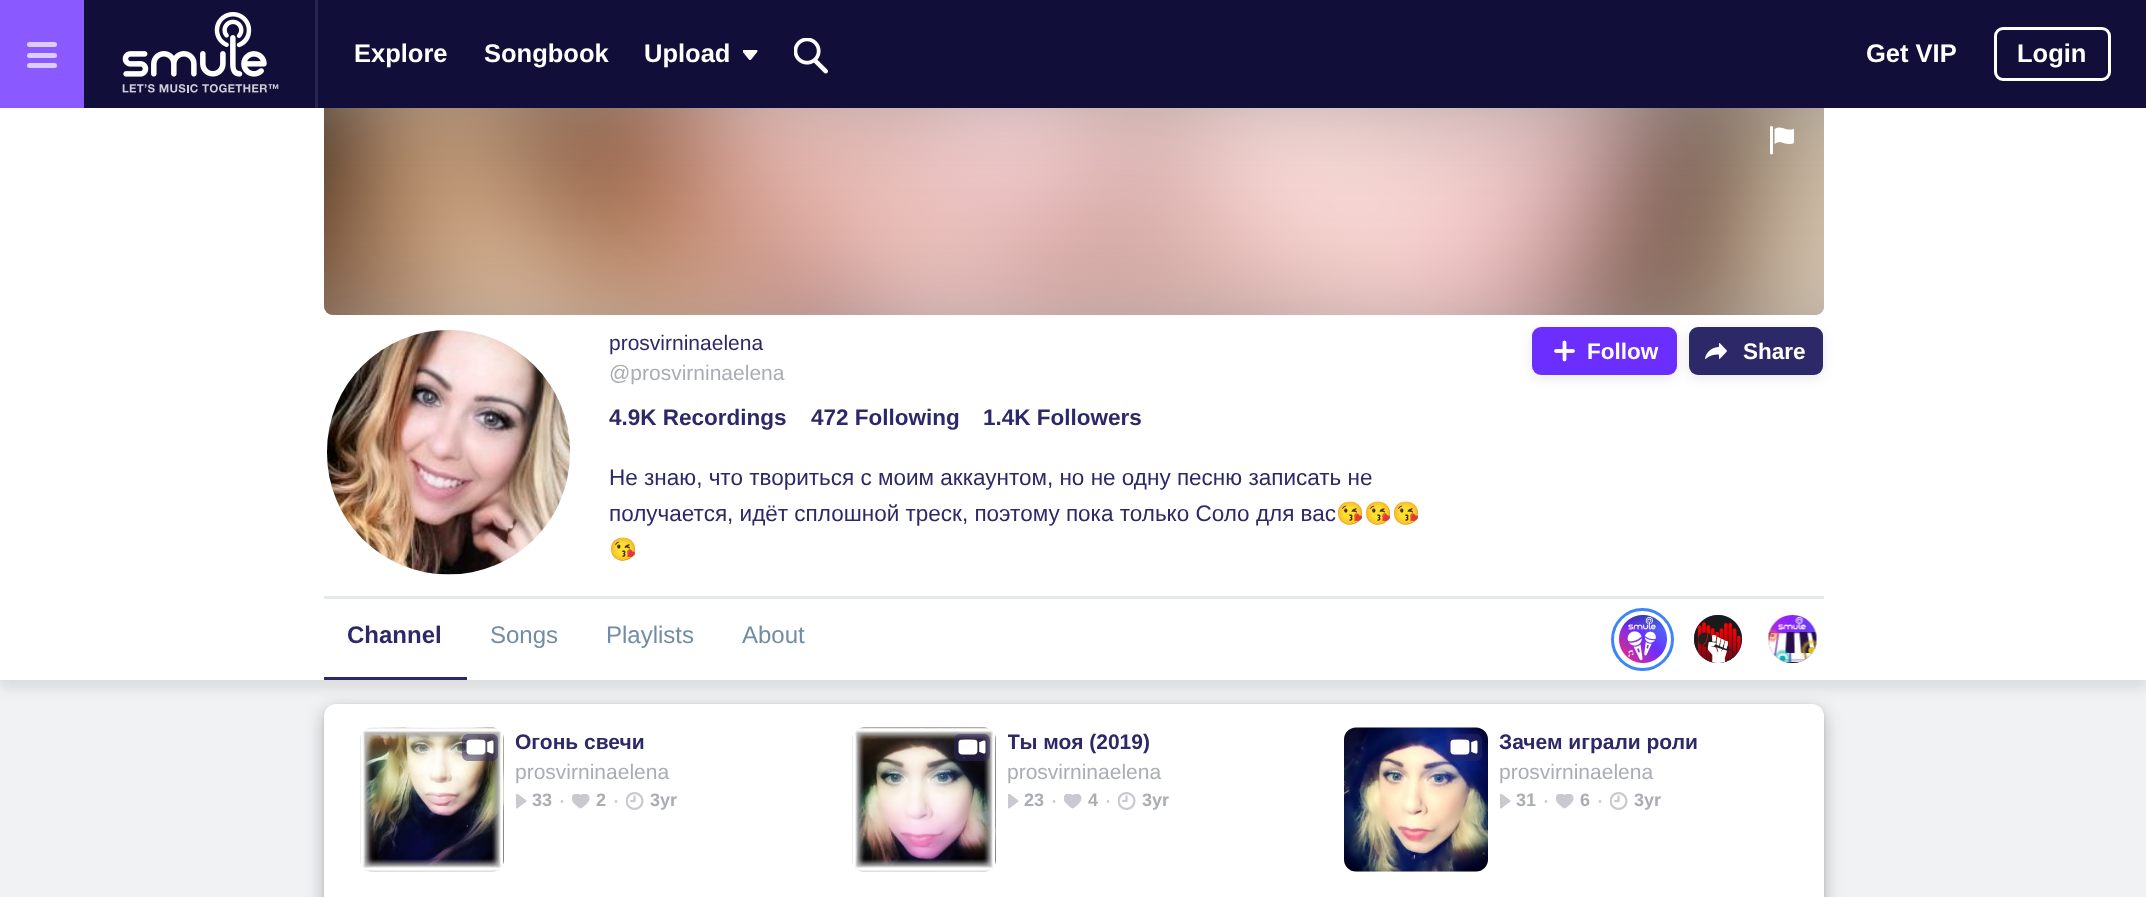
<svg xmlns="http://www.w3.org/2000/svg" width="2146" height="897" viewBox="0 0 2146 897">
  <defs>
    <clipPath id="clip1"><path d="M1008 728h275v30H1008z"/></clipPath>
  </defs>
  <rect width="100%" height="100%" fill="#f0f2f4"/>
  <path d="M84 0h2062v108H84z" fill="#110e39"/>
  <path d="M0 0h84v108H0z" fill="#8a59ff"/>
  <rect x="27" y="53" width="30" height="5" rx="2.5" fill="#dccdff"/>
  <rect x="27" y="42" width="30" height="5" rx="2.5" fill="#dccdff"/>
  <rect x="27" y="63" width="30" height="5" rx="2.5" fill="#dccdff"/>
  <image x="122" y="12" width="157" height="81" href="img/1.png"/>
  <path d="M315 0h3v108H315z" fill="#29264d"/>
  <image x="743" y="50" width="15" height="10" href="img/2.png"/>
  <image x="794" y="38" width="34" height="36" href="img/3.png"/>
  <rect x="1995.5" y="28.5" width="114" height="51" rx="7.5" fill="none" stroke="#fff" stroke-width="3"/>
  <path d="M0 108h2146v488H0z" fill="#fff"/>
  <path d="M324 108H1824V306C1824 311 1820 315 1815 315H333C328 315 324 311 324 306Z" fill="#999"/>
  <image x="324" y="108" width="1500" height="207" href="img/4.png"/>
  <image x="1770" y="126" width="24" height="29" href="img/5.png"/>
  <image x="327" y="330" width="243" height="245" href="img/6.png"/>
  <rect x="1532" y="330" width="145" height="48" rx="9" fill="#1f20211a" filter="blur(6px)"/>
  <rect x="1532" y="327" width="145" height="48" rx="9" fill="#6c2eff"/>
  <image x="1554" y="340" width="21" height="22" href="img/7.png"/>
  <rect x="1689" y="330" width="134" height="48" rx="9" fill="#1f20211a" filter="blur(6px)"/>
  <rect x="1689" y="327" width="134" height="48" rx="9" fill="#2d2867"/>
  <image x="1705" y="343" width="22" height="16" href="img/8.png"/>
  <rect x="324" y="710" width="1500" height="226" rx="12" fill="#1f20214d" filter="blur(9px)"/>
  <rect x="324" y="705" width="1500" height="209" rx="12" fill="#1f20211a" filter="blur(1.5px)"/>
  <rect x="324" y="704" width="1500" height="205" rx="12" fill="#fff"/>
  <path d="M0 605h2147v84H0z" fill="#1f20211a" filter="blur(6px)"/>
  <path d="M0 596h2146v84H0z" fill="#fff"/>
  <path d="M324 596h1500v3H324z" fill="#e4e9ee"/>
  <path d="M324 677h143v3H324z" fill="#2d2867"/>
  <circle cx="1642.5" cy="639.5" r="30" fill="none" stroke="#3c86f7" stroke-width="3"/>
  <image x="1619" y="615" width="48" height="48" href="img/9.png"/>
  <image x="1694" y="615" width="48" height="48" href="img/10.png"/>
  <image x="1768" y="615" width="49" height="48" href="img/11.png"/>
  <rect x="360" y="728" width="144" height="144" rx="12" fill="#f0f2f4"/>
  <image x="360" y="727" width="144" height="145" href="img/12.png"/>
  <image x="462" y="734" width="36" height="27" href="img/13.png"/>
  <image x="516" y="794" width="11" height="15" href="img/14.png"/>
  <image x="572" y="794" width="18" height="15" href="img/15.png"/>
  <image x="626" y="792" width="18" height="18" href="img/16.png"/>
  <rect x="852" y="728" width="144" height="144" rx="12" fill="#f0f2f4"/>
  <image x="852" y="727" width="144" height="145" href="img/17.png"/>
  <image x="954" y="734" width="36" height="27" href="img/18.png"/>
  <image x="1008" y="794" width="11" height="15" href="img/14.png"/>
  <image x="1064" y="794" width="18" height="15" href="img/15.png"/>
  <image x="1118" y="792" width="18" height="18" href="img/16.png"/>
  <rect x="1344" y="728" width="144" height="144" rx="12" fill="#f0f2f4"/>
  <image x="1344" y="727" width="145" height="145" href="img/19.png"/>
  <image x="1446" y="734" width="36" height="27" href="img/20.png"/>
  <image x="1500" y="794" width="11" height="15" href="img/14.png"/>
  <image x="1556" y="794" width="18" height="15" href="img/15.png"/>
  <image x="1610" y="792" width="18" height="18" href="img/16.png"/>
  <g font-family="Liberation Sans" font-size="25.5" font-weight="bold" fill="#fff">
    <text x="354" y="62">Explore</text>
    <text x="484" y="62">Songbook</text>
    <text x="644" y="62">Upload</text>
    <text x="1866" y="62">Get VIP</text>
    <text x="2017" y="62">Login</text>
  </g>
  <text x="609" y="350" font-family="Liberation Sans" font-size="21" fill="#2d2867">prosvirninaelena</text>
  <text x="609" y="380" font-family="Liberation Sans" font-size="21" fill="#aaadb4">@prosvirninaelena</text>
  <g font-family="Liberation Sans" font-size="22.5" font-weight="bold" fill="#2d2867">
    <text x="609" y="425">4.9K Recordings</text>
    <text x="811" y="425">472 Following</text>
    <text x="983" y="425">1.4K Followers</text>
  </g>
  <g font-family="Liberation Sans" font-size="22.5" fill="#2d2867">
    <text x="609" y="485">Не знаю, что твориться с моим аккаунтом, но не одну песню записать не</text>
    <text x="609" y="521">получается, идёт сплошной треск, поэтому пока только Соло для вас</text>
  </g>
  <g font-family="Noto Color Emoji" font-size="22.5" fill="#2d2867">
    <text x="1336" y="521">😘😘😘</text>
    <text x="609" y="557">😘</text>
  </g>
  <g font-family="Liberation Sans" font-size="22.5" font-weight="bold" fill="#fff">
    <text x="1587" y="359">Follow</text>
    <text x="1743" y="359">Share</text>
  </g>
  <text x="347" y="643" font-family="Liberation Sans" font-size="24" font-weight="bold" fill="#2d2867">Channel</text>
  <g font-family="Liberation Sans" font-size="24" fill="#728ca6">
    <text x="490" y="643">Songs</text>
    <text x="606" y="643">Playlists</text>
    <text x="742" y="643">About</text>
  </g>
  <text x="515" y="749" font-family="Liberation Sans" font-size="21" font-weight="bold" fill="#2d2867">Огонь свечи</text>
  <text x="515" y="779" font-family="Liberation Sans" font-size="21" fill="#aaadb4">prosvirninaelena</text>
  <text x="532" y="806" font-family="Liberation Sans" font-size="18" font-weight="bold" fill="#aaadb4">33</text>
  <text x="558" y="808" font-family="Liberation Sans" font-size="24" fill="#c8cacf">·</text>
  <text x="596" y="806" font-family="Liberation Sans" font-size="18" font-weight="bold" fill="#aaadb4">2</text>
  <text x="612" y="808" font-family="Liberation Sans" font-size="24" fill="#c8cacf">·</text>
  <text x="650" y="806" font-family="Liberation Sans" font-size="18" font-weight="bold" fill="#aaadb4">3yr</text>
  <g clip-path="url(#clip1)">
    <text x="1007" y="749" font-family="Liberation Sans" font-size="21" font-weight="bold" fill="#2d2867">Ты моя (2019)</text>
  </g>
  <text x="1007" y="779" font-family="Liberation Sans" font-size="21" fill="#aaadb4">prosvirninaelena</text>
  <text x="1024" y="806" font-family="Liberation Sans" font-size="18" font-weight="bold" fill="#aaadb4">23</text>
  <text x="1050" y="808" font-family="Liberation Sans" font-size="24" fill="#c8cacf">·</text>
  <text x="1088" y="806" font-family="Liberation Sans" font-size="18" font-weight="bold" fill="#aaadb4">4</text>
  <text x="1104" y="808" font-family="Liberation Sans" font-size="24" fill="#c8cacf">·</text>
  <text x="1142" y="806" font-family="Liberation Sans" font-size="18" font-weight="bold" fill="#aaadb4">3yr</text>
  <text x="1499" y="749" font-family="Liberation Sans" font-size="21" font-weight="bold" fill="#2d2867">Зачем играли роли</text>
  <text x="1499" y="779" font-family="Liberation Sans" font-size="21" fill="#aaadb4">prosvirninaelena</text>
  <text x="1516" y="806" font-family="Liberation Sans" font-size="18" font-weight="bold" fill="#aaadb4">31</text>
  <text x="1542" y="808" font-family="Liberation Sans" font-size="24" fill="#c8cacf">·</text>
  <text x="1580" y="806" font-family="Liberation Sans" font-size="18" font-weight="bold" fill="#aaadb4">6</text>
  <text x="1596" y="808" font-family="Liberation Sans" font-size="24" fill="#c8cacf">·</text>
  <text x="1634" y="806" font-family="Liberation Sans" font-size="18" font-weight="bold" fill="#aaadb4">3yr</text>
</svg>
